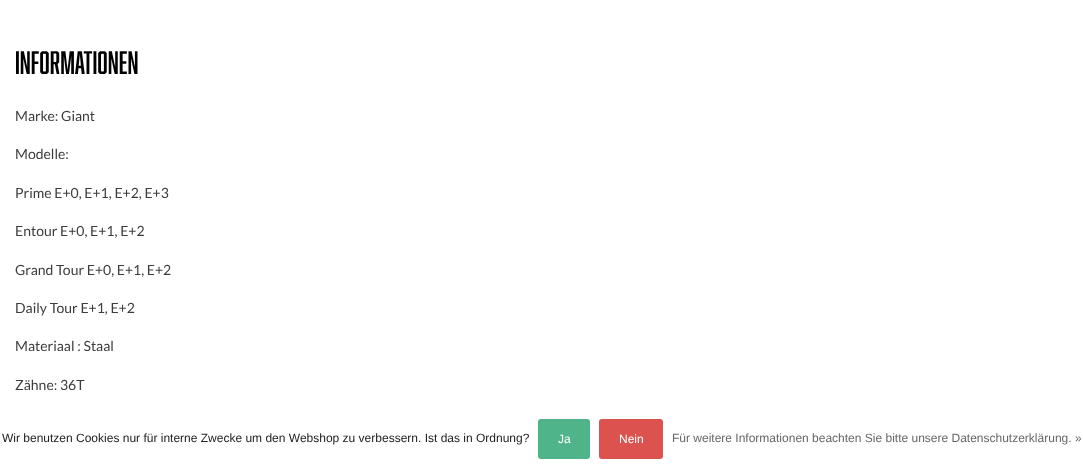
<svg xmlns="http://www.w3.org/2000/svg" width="1083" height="468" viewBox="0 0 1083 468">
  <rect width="100%" height="100%" fill="#fff"/>
  <rect x="538" y="419" width="52" height="40" rx="3" fill="#50b48a"/>
  <rect x="599" y="419" width="64" height="40" rx="3" fill="#db524e"/>
  <text x="15" y="74" font-family="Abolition" font-size="30" fill="#000">Informationen</text>
  <g font-family="Lato" font-size="14" fill="#3c3c3c">
    <text x="15" y="121">Marke: Giant</text>
    <text x="15" y="159">Modelle:</text>
    <text x="15" y="198">Prime E+0, E+1, E+2, E+3</text>
    <text x="15" y="236">Entour E+0, E+1, E+2</text>
    <text x="15" y="275">Grand Tour E+0, E+1, E+2</text>
    <text x="15" y="313">Daily Tour E+1, E+2</text>
    <text x="15" y="351">Materiaal : Staal</text>
    <text x="15" y="390">Zähne: 36T</text>
  </g>
  <text x="2" y="442" font-family="Liberation Sans" font-size="12" fill="#222">Wir benutzen Cookies nur für interne Zwecke um den Webshop zu verbessern. Ist das in Ordnung?</text>
  <g font-family="Liberation Sans" font-size="12" fill="#fff">
    <text x="558" y="443">Ja</text>
    <text x="619" y="443">Nein</text>
  </g>
  <text x="672" y="442" font-family="Liberation Sans" font-size="12" fill="#666">Für weitere Informationen beachten Sie bitte unsere Datenschutzerklärung. »</text>
</svg>
